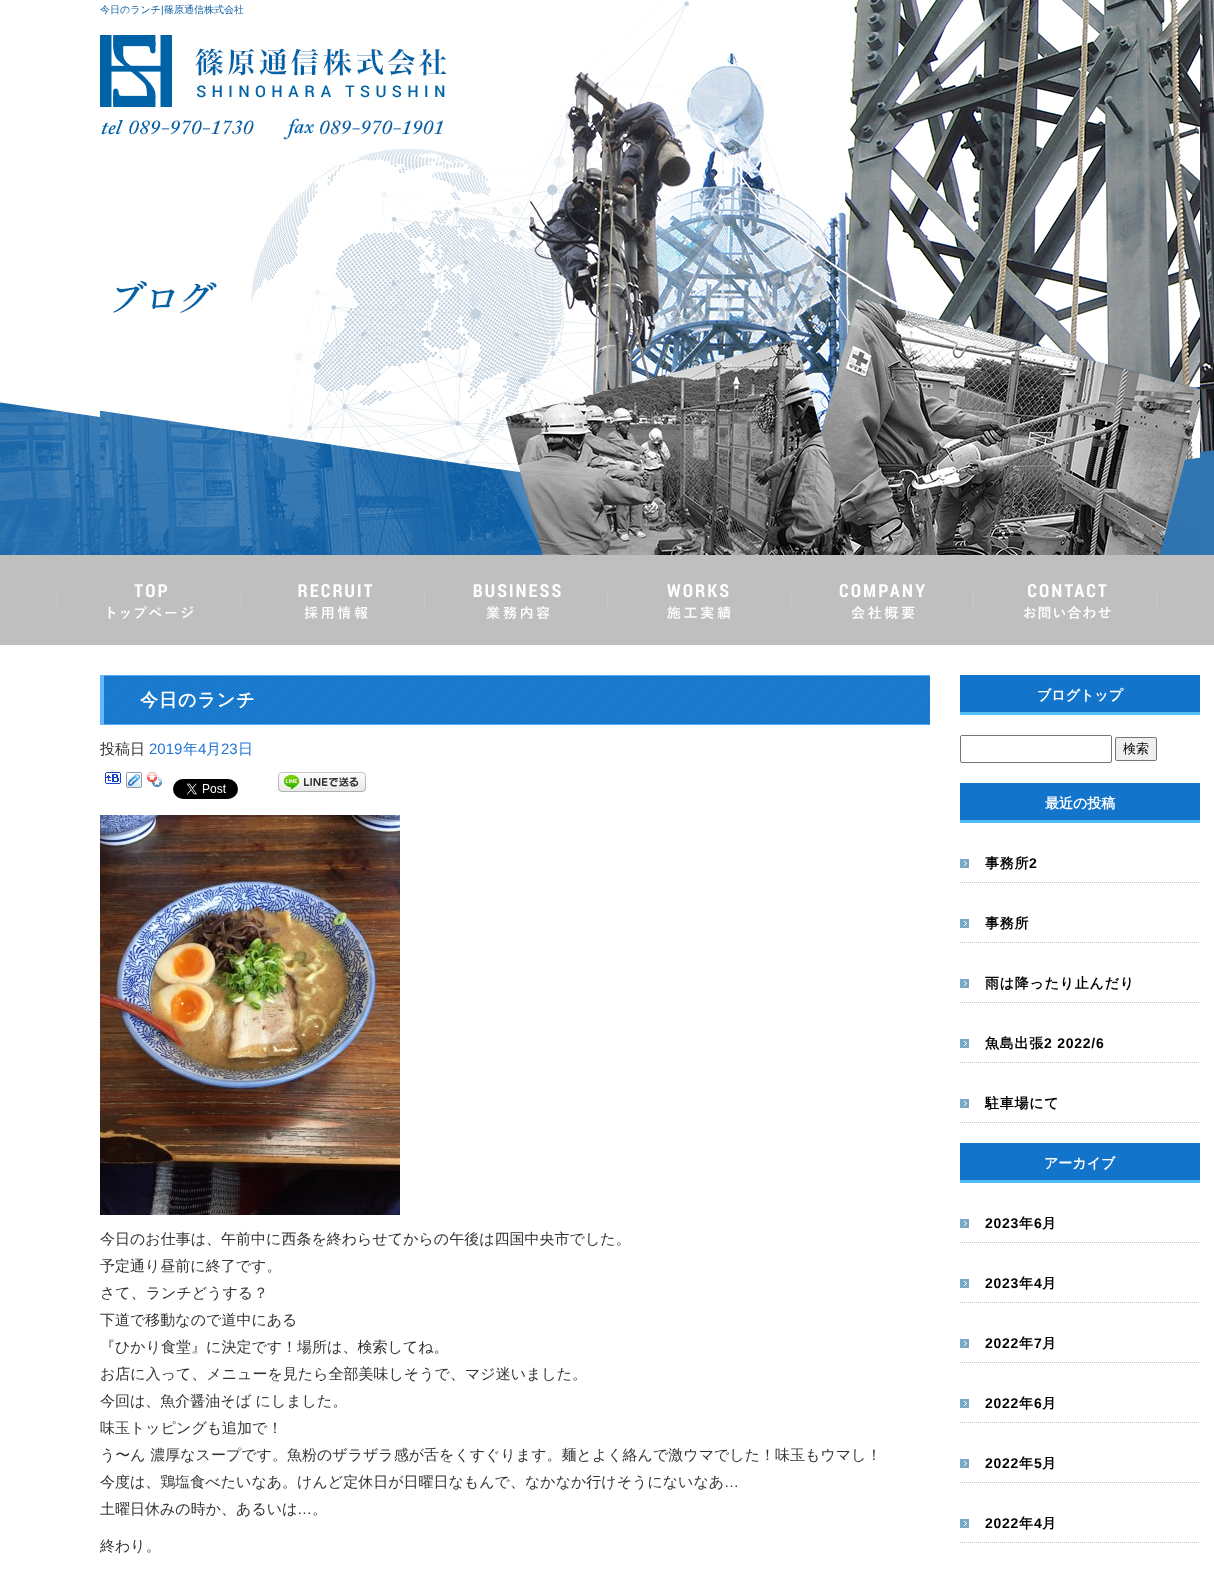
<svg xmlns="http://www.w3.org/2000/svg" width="1214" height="1577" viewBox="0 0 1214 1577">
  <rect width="100%" height="100%" fill="#fff"/>
  <image x="0" y="0" width="1214" height="555" href="img/1.png"/>
  <image x="100" y="0" width="1100" height="145" href="img/2.png"/>
  <path d="M0 555h1214v90H0z" fill="#bfbfbf"/>
  <image x="57" y="584" width="136" height="35" href="img/3.png"/>
  <image x="241" y="584" width="132" height="35" href="img/4.png"/>
  <image x="424" y="584" width="137" height="36" href="img/5.png"/>
  <image x="607" y="584" width="124" height="35" href="img/6.png"/>
  <image x="790" y="584" width="135" height="36" href="img/7.png"/>
  <image x="973" y="584" width="184" height="35" href="img/8.png"/>
  <image x="100" y="145" width="1100" height="410" href="img/9.png"/>
  <image x="100" y="675" width="830" height="50" href="img/10.png"/>
  <image x="105" y="772" width="16" height="12" href="img/11.png"/>
  <image x="126" y="772" width="16" height="16" href="img/12.png"/>
  <image x="147" y="772" width="15" height="15" href="img/13.png"/>
  <image x="173" y="779" width="65" height="20" href="img/14.png"/>
  <image x="278" y="772" width="88" height="20" href="img/15.png"/>
  <image x="100" y="815" width="300" height="400" href="img/16.png"/>
  <image x="960" y="675" width="240" height="40" href="img/17.png"/>
  <rect x="960.5" y="735.5" width="151" height="27" rx="1.5" fill="none" stroke="#767676"/>
  <rect x="1115.5" y="737.5" width="41" height="23" rx="1.5" fill="#efefef" stroke="#767676"/>
  <image x="960" y="783" width="240" height="40" href="img/17.png"/>
  <image x="960" y="859" width="239" height="24" href="img/18.png"/>
  <image x="960" y="919" width="239" height="24" href="img/18.png"/>
  <image x="960" y="979" width="239" height="24" href="img/18.png"/>
  <image x="960" y="1039" width="239" height="24" href="img/18.png"/>
  <image x="960" y="1099" width="239" height="24" href="img/18.png"/>
  <image x="960" y="1143" width="240" height="40" href="img/17.png"/>
  <image x="960" y="1219" width="239" height="24" href="img/18.png"/>
  <image x="960" y="1279" width="239" height="24" href="img/18.png"/>
  <image x="960" y="1339" width="239" height="24" href="img/18.png"/>
  <image x="960" y="1399" width="239" height="24" href="img/18.png"/>
  <image x="960" y="1459" width="239" height="24" href="img/18.png"/>
  <image x="960" y="1519" width="239" height="24" href="img/18.png"/>
  <text x="100" y="13" font-family="WenQuanYi Zen Hei" font-size="10" font-weight="500" fill="#0f5fa4">今日のランチ</text>
  <text x="161" y="13" font-family="Liberation Sans" font-size="10" fill="#0f5fa4">|</text>
  <text x="164" y="13" font-family="WenQuanYi Zen Hei" font-size="10" font-weight="500" fill="#0f5fa4">篠原通信株式会社</text>
  <text x="140" y="706" font-family="WenQuanYi Zen Hei" font-size="18" font-weight="bold" letter-spacing="1" fill="#fff">今日のランチ</text>
  <text x="100" y="754" font-family="WenQuanYi Zen Hei" font-size="15" font-weight="500" fill="#333">投稿日</text>
  <text x="149" y="754" font-family="Liberation Sans" font-size="15" fill="#1e74d4">2019</text>
  <text x="183" y="754" font-family="WenQuanYi Zen Hei" font-size="15" font-weight="500" fill="#1e74d4">年</text>
  <text x="198" y="754" font-family="Liberation Sans" font-size="15" fill="#1e74d4">4</text>
  <text x="206" y="754" font-family="WenQuanYi Zen Hei" font-size="15" font-weight="500" fill="#1e74d4">月</text>
  <text x="221" y="754" font-family="Liberation Sans" font-size="15" fill="#1e74d4">23</text>
  <text x="238" y="754" font-family="WenQuanYi Zen Hei" font-size="15" font-weight="500" fill="#1e74d4">日</text>
  <g font-family="WenQuanYi Zen Hei" font-size="15" font-weight="500" fill="#333">
    <text x="100" y="1244">今日のお仕事は、午前中に西条を終わらせてからの午後は四国中央市でした。</text>
    <text x="100" y="1271">予定通り昼前に終了です。</text>
    <text x="100" y="1298">さて、ランチどうする？</text>
    <text x="100" y="1325">下道で移動なので道中にある</text>
    <text x="100" y="1352">『ひかり食堂』に決定です！場所は、検索してね。</text>
    <text x="100" y="1379">お店に入って、メニューを見たら全部美味しそうで、マジ迷いました。</text>
    <text x="100" y="1406">今回は、魚介醤油そば にしました。</text>
    <text x="100" y="1433">味玉トッピングも追加で！</text>
    <text x="100" y="1460">う〜ん 濃厚なスープです。魚粉のザラザラ感が舌をくすぐります。麺とよく絡んで激ウマでした！味玉もウマし！</text>
    <text x="100" y="1487">今度は、鶏塩食べたいなあ。けんど定休日が日曜日なもんで、なかなか行けそうにないなあ</text>
  </g>
  <text x="724" y="1487" font-family="Liberation Sans" font-size="15" fill="#333">…</text>
  <text x="100" y="1514" font-family="WenQuanYi Zen Hei" font-size="15" font-weight="500" fill="#333">土曜日休みの時か、あるいは</text>
  <text x="297" y="1514" font-family="Liberation Sans" font-size="15" fill="#333">…</text>
  <g font-family="WenQuanYi Zen Hei" font-size="15" font-weight="500" fill="#333">
    <text x="312" y="1514">。</text>
    <text x="100" y="1551">終わり。</text>
  </g>
  <text x="1037" y="700" font-family="WenQuanYi Zen Hei" font-size="14" font-weight="bold" fill="#fff">ブログトップ</text>
  <text x="1123" y="753" font-family="WenQuanYi Zen Hei" font-size="13" font-weight="500" fill="#000">検索</text>
  <text x="1045" y="808" font-family="WenQuanYi Zen Hei" font-size="14" font-weight="bold" fill="#fff">最近の投稿</text>
  <text x="985" y="868" font-family="WenQuanYi Zen Hei" font-size="14" font-weight="bold" letter-spacing="0.75" fill="#000">事務所</text>
  <text x="1029" y="868" font-family="Liberation Sans" font-size="14" font-weight="bold" letter-spacing="0.75" fill="#000">2</text>
  <g font-family="WenQuanYi Zen Hei" font-size="14" font-weight="bold" letter-spacing="0.75" fill="#000">
    <text x="985" y="928">事務所</text>
    <text x="985" y="988">雨は降ったり止んだり</text>
    <text x="985" y="1048">魚島出張</text>
  </g>
  <text x="1044" y="1048" font-family="Liberation Sans" font-size="14" font-weight="bold" letter-spacing="0.75" fill="#000">2 2022/6</text>
  <text x="985" y="1108" font-family="WenQuanYi Zen Hei" font-size="14" font-weight="bold" letter-spacing="0.75" fill="#000">駐車場にて</text>
  <text x="1044" y="1168" font-family="WenQuanYi Zen Hei" font-size="14" font-weight="bold" fill="#fff">アーカイブ</text>
  <text x="985" y="1228" font-family="Liberation Sans" font-size="14" font-weight="bold" letter-spacing="0.75" fill="#000">2023</text>
  <text x="1019" y="1228" font-family="WenQuanYi Zen Hei" font-size="14" font-weight="bold" letter-spacing="0.75" fill="#000">年</text>
  <text x="1034" y="1228" font-family="Liberation Sans" font-size="14" font-weight="bold" letter-spacing="0.75" fill="#000">6</text>
  <text x="1042" y="1228" font-family="WenQuanYi Zen Hei" font-size="14" font-weight="bold" letter-spacing="0.75" fill="#000">月</text>
  <text x="985" y="1288" font-family="Liberation Sans" font-size="14" font-weight="bold" letter-spacing="0.75" fill="#000">2023</text>
  <text x="1019" y="1288" font-family="WenQuanYi Zen Hei" font-size="14" font-weight="bold" letter-spacing="0.75" fill="#000">年</text>
  <text x="1034" y="1288" font-family="Liberation Sans" font-size="14" font-weight="bold" letter-spacing="0.75" fill="#000">4</text>
  <text x="1042" y="1288" font-family="WenQuanYi Zen Hei" font-size="14" font-weight="bold" letter-spacing="0.75" fill="#000">月</text>
  <text x="985" y="1348" font-family="Liberation Sans" font-size="14" font-weight="bold" letter-spacing="0.75" fill="#000">2022</text>
  <text x="1019" y="1348" font-family="WenQuanYi Zen Hei" font-size="14" font-weight="bold" letter-spacing="0.75" fill="#000">年</text>
  <text x="1034" y="1348" font-family="Liberation Sans" font-size="14" font-weight="bold" letter-spacing="0.75" fill="#000">7</text>
  <text x="1042" y="1348" font-family="WenQuanYi Zen Hei" font-size="14" font-weight="bold" letter-spacing="0.75" fill="#000">月</text>
  <text x="985" y="1408" font-family="Liberation Sans" font-size="14" font-weight="bold" letter-spacing="0.75" fill="#000">2022</text>
  <text x="1019" y="1408" font-family="WenQuanYi Zen Hei" font-size="14" font-weight="bold" letter-spacing="0.75" fill="#000">年</text>
  <text x="1034" y="1408" font-family="Liberation Sans" font-size="14" font-weight="bold" letter-spacing="0.75" fill="#000">6</text>
  <text x="1042" y="1408" font-family="WenQuanYi Zen Hei" font-size="14" font-weight="bold" letter-spacing="0.75" fill="#000">月</text>
  <text x="985" y="1468" font-family="Liberation Sans" font-size="14" font-weight="bold" letter-spacing="0.75" fill="#000">2022</text>
  <text x="1019" y="1468" font-family="WenQuanYi Zen Hei" font-size="14" font-weight="bold" letter-spacing="0.75" fill="#000">年</text>
  <text x="1034" y="1468" font-family="Liberation Sans" font-size="14" font-weight="bold" letter-spacing="0.75" fill="#000">5</text>
  <text x="1042" y="1468" font-family="WenQuanYi Zen Hei" font-size="14" font-weight="bold" letter-spacing="0.75" fill="#000">月</text>
  <text x="985" y="1528" font-family="Liberation Sans" font-size="14" font-weight="bold" letter-spacing="0.75" fill="#000">2022</text>
  <text x="1019" y="1528" font-family="WenQuanYi Zen Hei" font-size="14" font-weight="bold" letter-spacing="0.75" fill="#000">年</text>
  <text x="1034" y="1528" font-family="Liberation Sans" font-size="14" font-weight="bold" letter-spacing="0.75" fill="#000">4</text>
  <text x="1042" y="1528" font-family="WenQuanYi Zen Hei" font-size="14" font-weight="bold" letter-spacing="0.75" fill="#000">月</text>
</svg>
